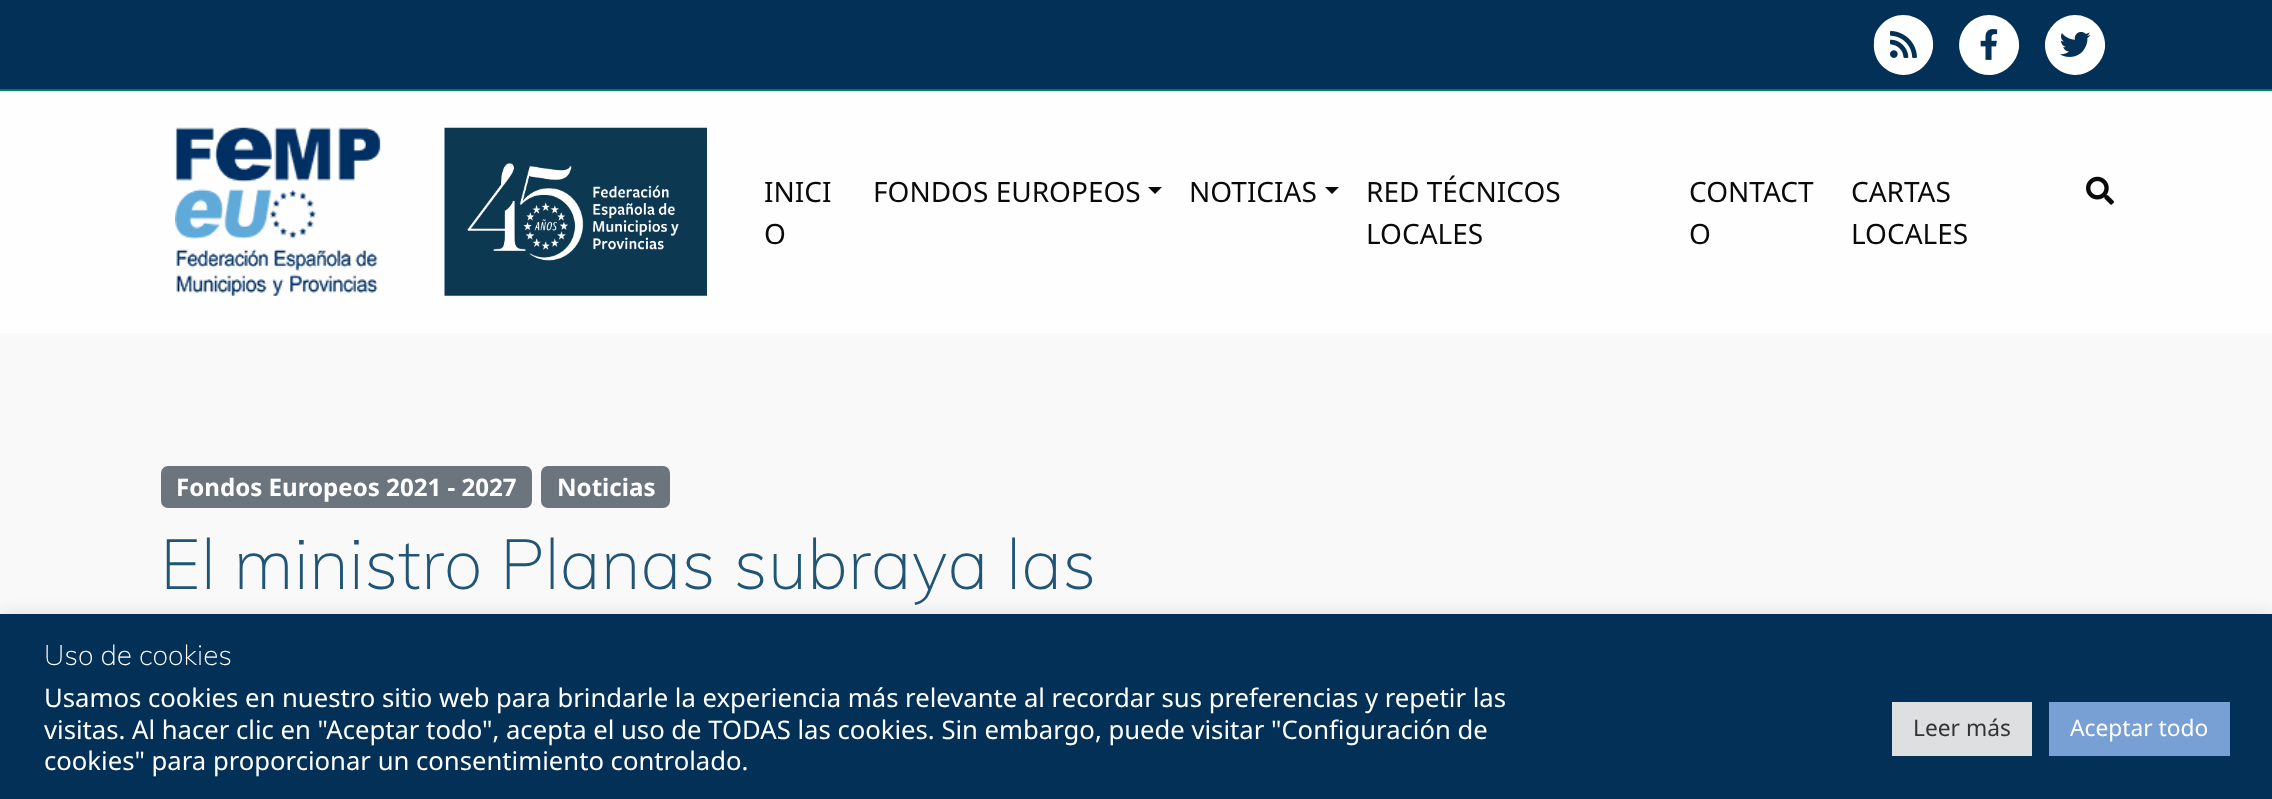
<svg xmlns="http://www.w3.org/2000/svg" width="2272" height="799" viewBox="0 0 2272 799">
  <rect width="100%" height="100%" fill="#f9f9f9"/>
  <path d="M0 0h2272v89H0z" fill="#023056"/>
  <path d="M0 89h2272v2H0z" fill="#008061"/>
  <path d="M1882 24C1902 4 1936 20 1933 48C1932 55 1929 61 1924 66C1905 86 1871 70 1874 42C1874 35 1877 29 1882 24Z" fill="#fff"/>
  <image x="1890" y="31" width="27" height="27" href="img/1.png"/>
  <path d="M1968 24C1988 4 2021 20 2019 48C2018 55 2015 61 2010 66C2005 71 1999 74 1992 75C1964 77 1948 44 1968 24Z" fill="#fff"/>
  <image x="1980" y="29" width="18" height="31" href="img/2.png"/>
  <path d="M2054 24C2074 4 2107 20 2105 48C2104 55 2101 61 2096 66C2076 86 2043 70 2045 42C2046 35 2049 29 2054 24Z" fill="#fff"/>
  <image x="2060" y="31" width="31" height="26" href="img/3.png"/>
  <path d="M0 91h2272v242H0z" fill="#fefefe"/>
  <image x="175" y="127" width="206" height="169" href="img/4.png"/>
  <image x="444" y="127" width="263" height="169" href="img/5.png"/>
  <path d="M1148 187H1162L1155 194Z" fill="#0a0a0a"/>
  <path d="M1325 187H1339L1332 194Z" fill="#0a0a0a"/>
  <image x="2086" y="176" width="28" height="29" href="img/6.png"/>
  <rect x="161" y="466" width="371" height="42" rx="7" fill="#6c757d"/>
  <rect x="541" y="466" width="129" height="42" rx="7" fill="#6c757d"/>
  <path d="M0 613h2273v185H0z" fill="#acabab4d" filter="blur(9px)"/>
  <path d="M0 614h2272v185H0z" fill="#033057"/>
  <path d="M1892 702h140v54H1892z" fill="#dedfe0"/>
  <path d="M2049 702h181v54H2049z" fill="#78a0d4"/>
  <g font-family="Noto Sans" font-size="28" fill="#0a0a0a">
    <text x="764" y="202">INICI</text>
    <text x="764" y="244">O</text>
    <text x="873" y="202">FONDOS EUROPEOS</text>
    <text x="1189" y="202">NOTICIAS</text>
    <text x="1366" y="202">RED TÉCNICOS</text>
    <text x="1366" y="244">LOCALES</text>
    <text x="1689" y="202">CONTACT</text>
    <text x="1689" y="244">O</text>
    <text x="1851" y="202">CARTAS</text>
    <text x="1851" y="244">LOCALES</text>
  </g>
  <g font-family="Noto Sans" font-size="24.1" font-weight="bold" fill="#fff">
    <text x="176" y="496">Fondos Europeos 2021 - 2027</text>
    <text x="557" y="496">Noticias</text>
  </g>
  <text x="160" y="589" font-family="Mulish" font-size="70" font-weight="200" fill="#215575">El ministro Planas subraya las</text>
  <text x="44" y="665" font-family="Mulish" font-size="28" font-weight="200" fill="#fff">Uso de cookies</text>
  <g font-family="Noto Sans" font-size="25.67" fill="#fff">
    <text x="44" y="707">Usamos cookies en nuestro sitio web para brindarle la experiencia más relevante al recordar sus preferencias y repetir las</text>
    <text x="44" y="739">visitas. Al hacer clic en "Aceptar todo", acepta el uso de TODAS las cookies. Sin embargo, puede visitar "Configuración de</text>
    <text x="44" y="770">cookies" para proporcionar un consentimiento controlado.</text>
  </g>
  <text x="1913" y="736" font-family="Noto Sans" font-size="22.75" fill="#333">Leer más</text>
  <text x="2070" y="736" font-family="Noto Sans" font-size="22.75" fill="#fff">Aceptar todo</text>
</svg>
